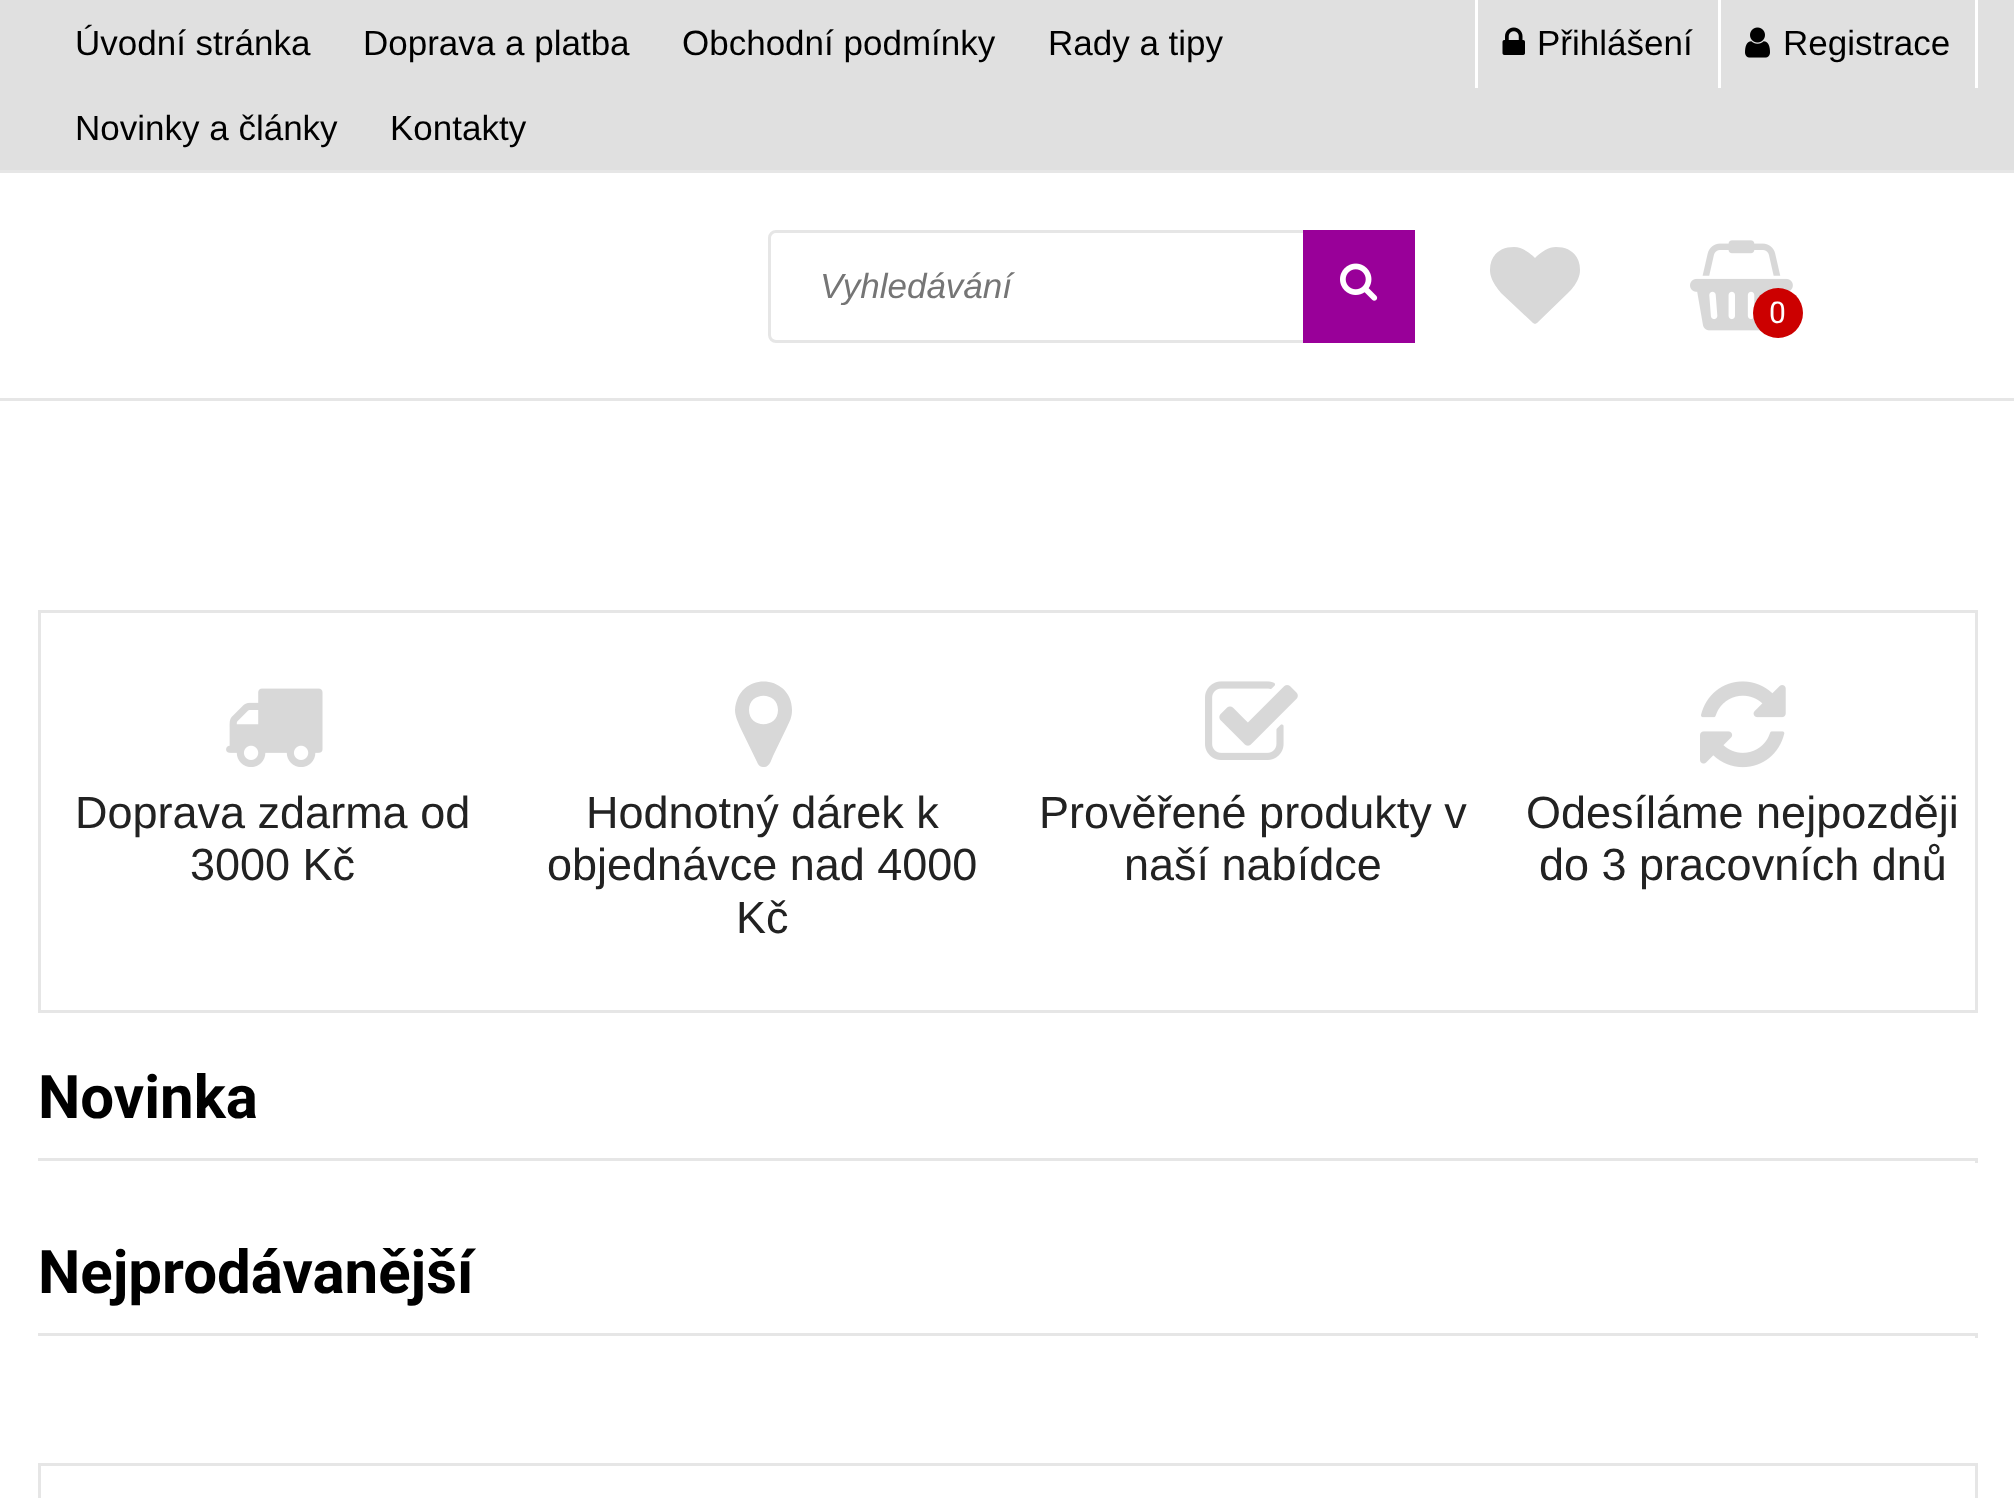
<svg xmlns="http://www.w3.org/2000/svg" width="2014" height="1498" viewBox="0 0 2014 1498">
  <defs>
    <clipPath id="clip1"><path d="M820 265h543v40H820z"/></clipPath>
  </defs>
  <rect width="100%" height="100%" fill="#fff"/>
  <path d="M0 0h2014v170H0z" fill="#e0e0e0"/>
  <path d="M1718 0h3v88H1718z" fill="#fff"/>
  <path d="M1475 0h3v88H1475z" fill="#fff"/>
  <image x="1502" y="27" width="23" height="28" href="img/1.png"/>
  <path d="M1975 0h3v88H1975z" fill="#fff"/>
  <image x="1745" y="27" width="25" height="31" href="img/2.png"/>
  <path d="M0 170h2014v3H0z" fill="#e6e6e6"/>
  <path d="M0 398h2014v3H0z" fill="#e6e6e6"/>
  <rect x="769.5" y="231.5" width="644" height="110" rx="6.5" fill="none" stroke="#e6e6e6" stroke-width="3"/>
  <path d="M1303 230h112v113H1303z" fill="#909"/>
  <image x="1340" y="263" width="38" height="38" href="img/3.png"/>
  <path d="M1535 324L1537 323L1568 293C1569 292 1580 282 1580 270C1580 256 1571 247 1556 247C1547 247 1539 254 1535 258C1531 254 1523 247 1514 247C1499 247 1490 256 1490 270C1490 282 1501 292 1501 293L1533 323Z" fill="#d8d8d8"/>
  <image x="1690" y="240" width="103" height="91" href="img/4.png"/>
  <circle cx="1778" cy="313" r="25" fill="#c00"/>
  <path d="M39.5 611.5h1937v400H39.5z" fill="none" stroke="#e6e6e6" stroke-width="3"/>
  <image x="226" y="688" width="97" height="79" href="img/5.png"/>
  <path d="M778 710C778 729 749 729 749 710C749 691 778 691 778 710ZM792 710C792 674 738 670 735 710C735 716 738 722 740 727L758 764C759 766 761 767 763 767C769 768 771 761 773 756L787 727C790 721 792 717 792 710Z" fill="#d8d8d8"/>
  <image x="1205" y="681" width="93" height="79" href="img/6.png"/>
  <image x="1700" y="681" width="86" height="87" href="img/7.png"/>
  <path d="M38 1158h1940v3H38z" fill="#e6e6e6"/>
  <path d="M1975 1158h3v5H1975z" fill="#e6e6e6"/>
  <path d="M38 1333h1940v3H38z" fill="#e6e6e6"/>
  <path d="M1975 1333h3v5H1975z" fill="#e6e6e6"/>
  <path d="M39.5 1464.5h1937v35H39.5z" fill="none" stroke="#e6e6e6" stroke-width="3"/>
  <g font-family="Liberation Sans" font-size="35" fill="#000">
    <text x="75" y="55">Úvodní stránka</text>
    <text x="363" y="55">Doprava a platba</text>
    <text x="682" y="55">Obchodní podmínky</text>
    <text x="1048" y="55">Rady a tipy</text>
    <text x="75" y="140">Novinky a články</text>
    <text x="390" y="140">Kontakty</text>
    <text x="1537" y="55">Přihlášení</text>
    <text x="1783" y="55">Registrace</text>
  </g>
  <g clip-path="url(#clip1)">
    <text x="820" y="298" font-family="Liberation Sans" font-size="35" font-style="italic" fill="#757575">Vyhledávání</text>
  </g>
  <text x="1769" y="323" font-family="Roboto" font-size="30" fill="#fff">0</text>
  <g font-family="Liberation Sans" font-size="45" fill="#222">
    <text x="75" y="828">Doprava zdarma od</text>
    <text x="190" y="880">3000 Kč</text>
    <text x="586" y="828">Hodnotný dárek k</text>
    <text x="547" y="880">objednávce nad 4000</text>
    <text x="736" y="933">Kč</text>
    <text x="1039" y="828">Prověřené produkty v</text>
    <text x="1124" y="880">naší nabídce</text>
    <text x="1526" y="828">Odesíláme nejpozději</text>
    <text x="1539" y="880">do 3 pracovních dnů</text>
  </g>
  <g font-family="Roboto" font-size="60" font-weight="bold" fill="#000">
    <text x="38" y="1118">Novinka</text>
    <text x="38" y="1293">Nejprodávanější</text>
  </g>
</svg>
